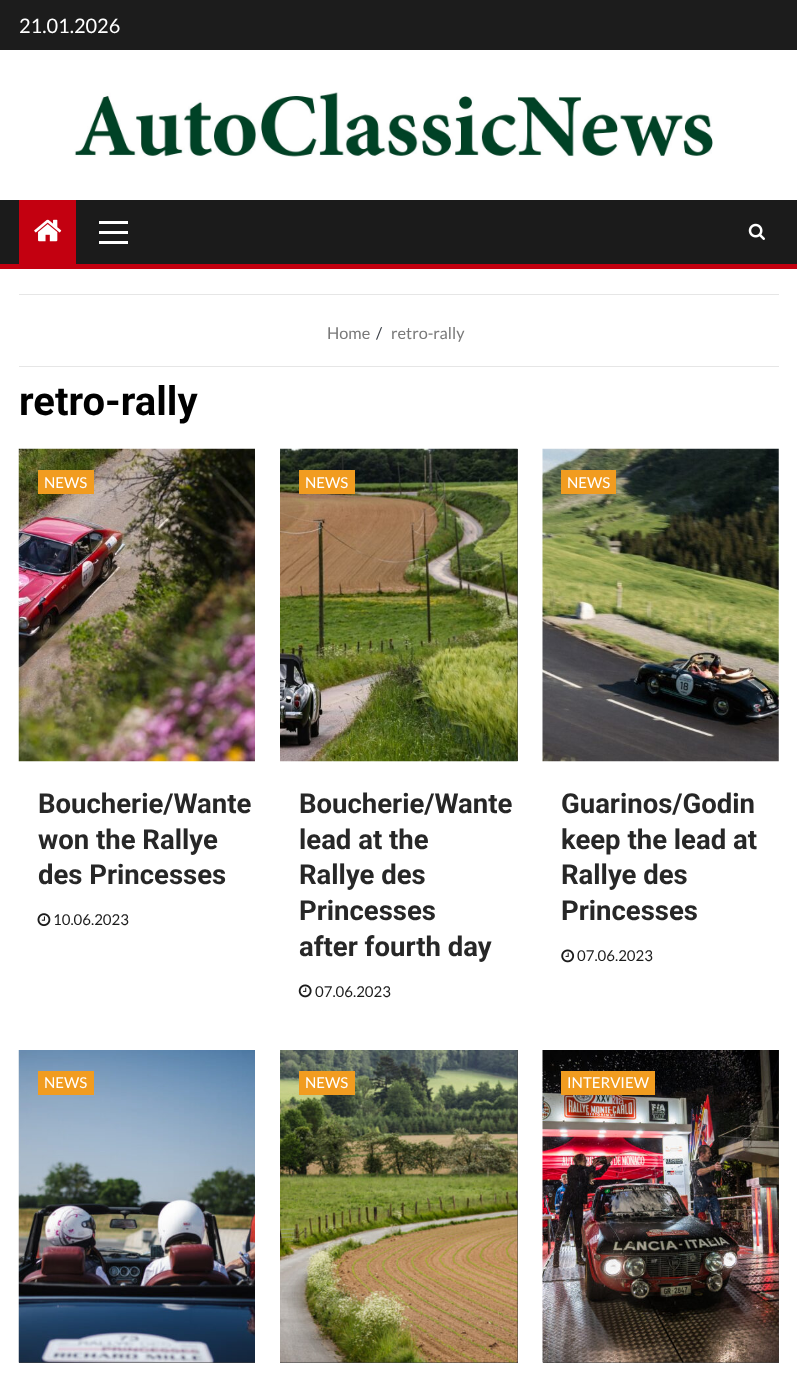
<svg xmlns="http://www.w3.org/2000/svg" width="797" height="1391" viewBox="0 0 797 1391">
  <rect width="100%" height="100%" fill="#fff"/>
  <path d="M0 0h797v50H0z" fill="#1c1c1c"/>
  <image x="74" y="92" width="639" height="65" href="img/1.png"/>
  <path d="M0 200h797v64H0z" fill="#1b1b1b"/>
  <path d="M0 264h797v5H0z" fill="#c30010"/>
  <path d="M19 200h57v64H19z" fill="#c30010"/>
  <image x="34" y="219" width="28" height="23" href="img/2.png"/>
  <path d="M99 231h29v3H99z" fill="#fff"/>
  <path d="M99 221h29v3H99z" fill="#fff"/>
  <path d="M99 241h29v3H99z" fill="#fff"/>
  <image x="748" y="223" width="17" height="17" href="img/3.png"/>
  <path d="M19 294h760v1H19z" fill="#e6e6e6"/>
  <path d="M19 366h760v1H19z" fill="#e6e6e6"/>
  <image x="18" y="448" width="237" height="314" href="img/4.png"/>
  <path d="M38 470h56v24H38z" fill="#f19c20"/>
  <image x="37" y="913" width="14" height="14" href="img/5.png"/>
  <path d="M517 449h1v312H517z" fill="#404040"/>
  <image x="280" y="448" width="238" height="314" href="img/6.png"/>
  <path d="M299 470h56v24H299z" fill="#f19c20"/>
  <image x="298" y="984" width="14" height="14" href="img/7.png"/>
  <image x="542" y="448" width="237" height="314" href="img/8.png"/>
  <path d="M561 470h55v24H561z" fill="#f19c20"/>
  <image x="561" y="949" width="14" height="14" href="img/9.png"/>
  <path d="M19 1362h236v1H19z" fill="#404040"/>
  <image x="18" y="1050" width="237" height="313" href="img/10.png"/>
  <path d="M38 1071h56v24H38z" fill="#f19c20"/>
  <path d="M280 1050h238v313H280z" fill="#404040"/>
  <image x="280" y="1050" width="238" height="313" href="img/11.png"/>
  <path d="M299 1071h56v24H299z" fill="#f19c20"/>
  <path d="M543 1050h236v313H543z" fill="#404040"/>
  <image x="542" y="1050" width="237" height="313" href="img/12.png"/>
  <path d="M561 1071h94v24H561z" fill="#f19c20"/>
  <text x="19" y="33" font-family="Lato" font-size="20" fill="#fff">21.01.2026</text>
  <text x="327" y="339" font-family="Lato" font-size="16.25" fill="#797979">Home</text>
  <text x="376" y="339" font-family="Lato" font-size="16.25" fill="#393e46">/</text>
  <text x="391" y="339" font-family="Lato" font-size="16.25" fill="#797979">retro-rally</text>
  <text x="19" y="415" font-family="Roboto" font-size="40" font-weight="bold" fill="#000">retro-rally</text>
  <text x="44" y="488" font-family="Lato" font-size="15" fill="#fff">NEWS</text>
  <g font-family="Roboto" font-size="27.5" font-weight="bold" fill="#272727">
    <text x="38" y="813">Boucherie/Wante</text>
    <text x="38" y="849">won the Rallye</text>
    <text x="38" y="884">des Princesses</text>
  </g>
  <text x="53" y="925" font-family="Lato" font-size="15" fill="#1c1c1c">10.06.2023</text>
  <text x="305" y="488" font-family="Lato" font-size="15" fill="#fff">NEWS</text>
  <g font-family="Roboto" font-size="27.5" font-weight="bold" fill="#272727">
    <text x="299" y="813">Boucherie/Wante</text>
    <text x="299" y="849">lead at the</text>
    <text x="299" y="884">Rallye des</text>
    <text x="299" y="920">Princesses</text>
    <text x="299" y="956">after fourth day</text>
  </g>
  <text x="315" y="997" font-family="Lato" font-size="15" fill="#1c1c1c">07.06.2023</text>
  <text x="567" y="488" font-family="Lato" font-size="15" fill="#fff">NEWS</text>
  <g font-family="Roboto" font-size="27.5" font-weight="bold" fill="#272727">
    <text x="561" y="813">Guarinos/Godin</text>
    <text x="561" y="849">keep the lead at</text>
    <text x="561" y="884">Rallye des</text>
    <text x="561" y="920">Princesses</text>
  </g>
  <text x="577" y="961" font-family="Lato" font-size="15" fill="#1c1c1c">07.06.2023</text>
  <g font-family="Lato" font-size="15" fill="#fff">
    <text x="44" y="1088">NEWS</text>
    <text x="305" y="1088">NEWS</text>
    <text x="567" y="1088">INTERVIEW</text>
  </g>
</svg>
